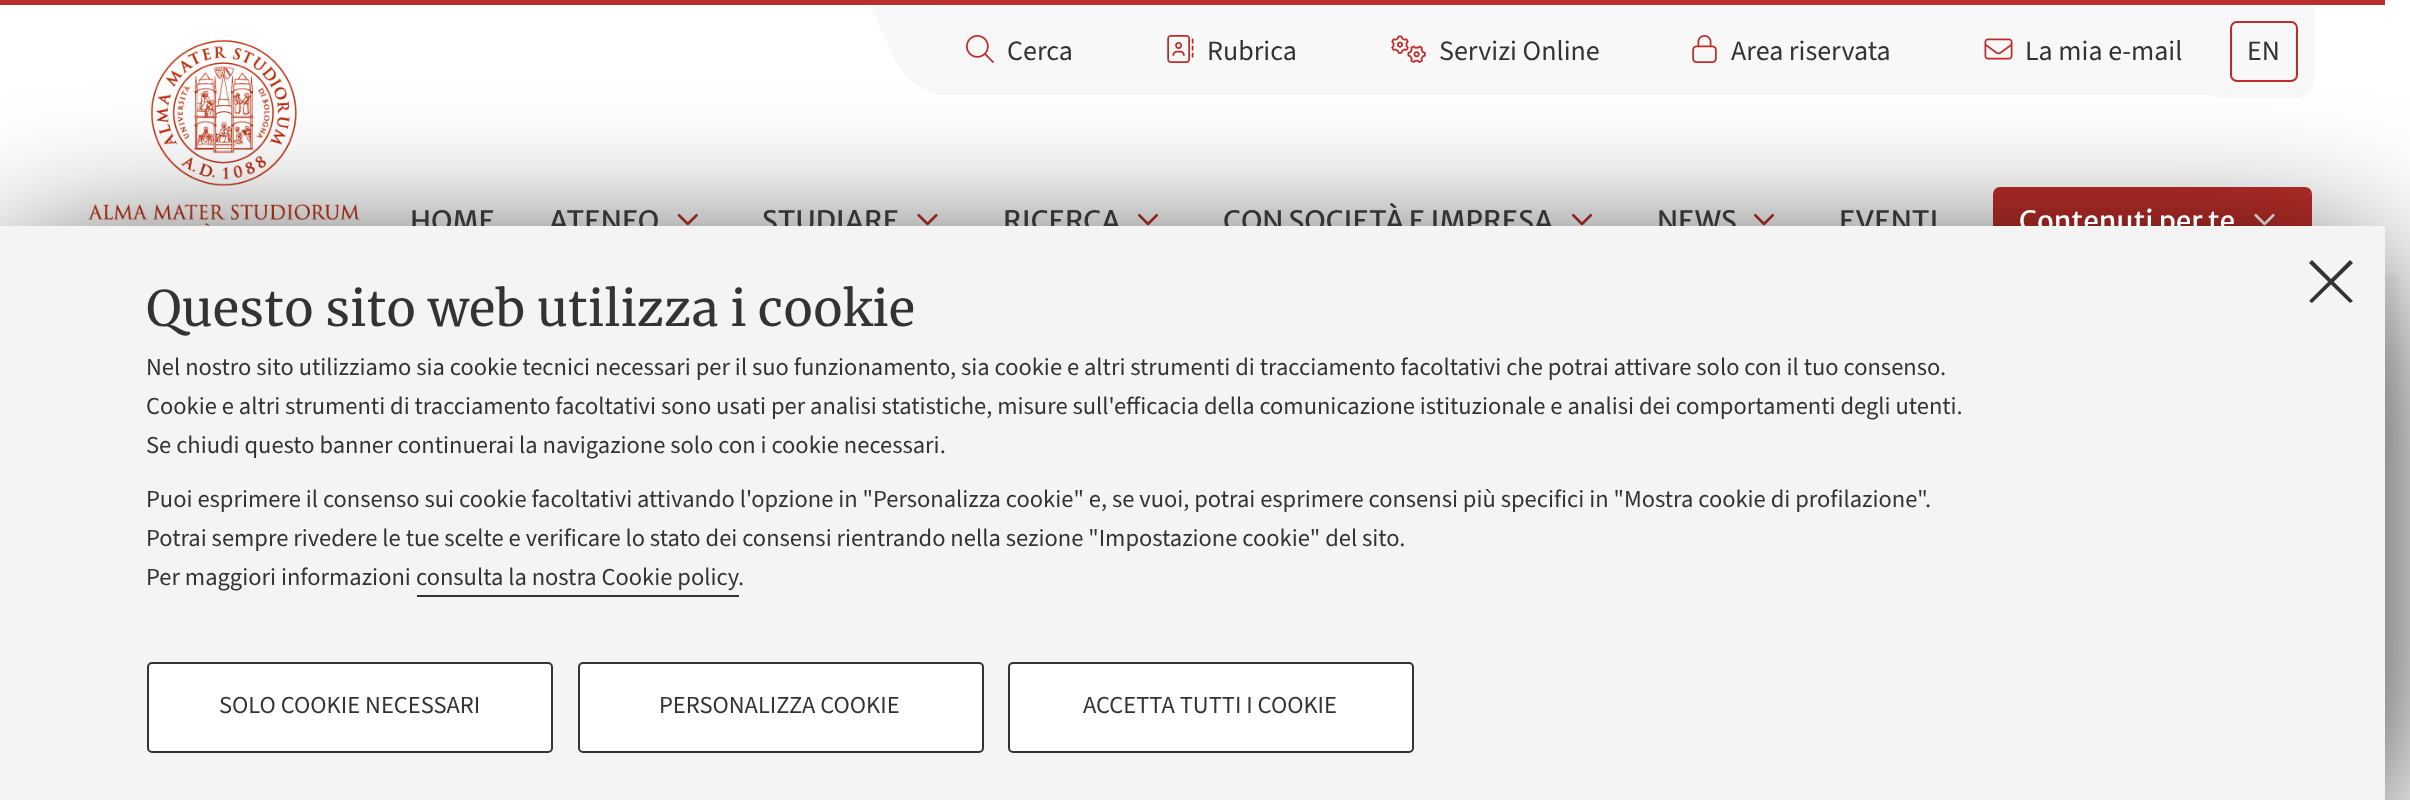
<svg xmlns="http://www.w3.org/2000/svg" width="2410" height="800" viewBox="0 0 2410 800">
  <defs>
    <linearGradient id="g1" gradientUnits="userSpaceOnUse" x1="1194" y1="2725" x2="1194" y2="273"><stop offset="0.88" stop-color="#fff"/><stop offset="1" stop-color="#f8f8f8"/></linearGradient>
  </defs>
  <rect width="100%" height="100%" fill="#fff"/>
  <path d="M0 0h2385v5H0z" fill="#bb2e29"/>
  <path d="M935 5h1279v90H935z" fill="#f8f8f8"/>
  <path d="M870 6H1010C1029 6 1052 22 1061 41L1086 95H946C927 95 904 80 895 60Z" fill="#f8f8f8"/>
  <image x="1167" y="35" width="27" height="28" href="img/1.png"/>
  <image x="1391" y="35" width="35" height="28" href="img/2.png"/>
  <image x="1692" y="35" width="25" height="28" href="img/3.png"/>
  <image x="1984" y="38" width="29" height="22" href="img/4.png"/>
  <image x="966" y="35" width="28" height="28" href="img/5.png"/>
  <path d="M2214 5H2314V80C2314 90 2306 98 2296 98H2214Z" fill="#f8f8f8"/>
  <rect x="2231" y="22" width="66" height="59" rx="6" fill="none" stroke="#bb2e29" stroke-width="2"/>
  <image x="88" y="40" width="272" height="186" href="img/6.png"/>
  <image x="677" y="213" width="21" height="13" href="img/7.png"/>
  <image x="917" y="213" width="21" height="13" href="img/8.png"/>
  <image x="1138" y="213" width="20" height="13" href="img/9.png"/>
  <image x="1572" y="213" width="20" height="13" href="img/9.png"/>
  <image x="1754" y="213" width="20" height="13" href="img/9.png"/>
  <rect x="1993" y="187" width="319" height="67" rx="7" fill="#bb2e29"/>
  <image x="2254" y="213" width="21" height="13" href="img/10.png"/>
  <path d="M2385 273h14v189H2385z" fill="url(#g1)"/>
  <path d="M16 273h2354v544H16z" fill="#000" filter="blur(79px)"/>
  <g font-family="'Source Sans 3'" font-size="28" fill="#333">
    <text x="1207" y="60">Rubrica</text>
    <text x="1439" y="60">Servizi Online</text>
    <text x="1731" y="60">Area riservata</text>
    <text x="2025" y="60">La mia e-mail</text>
    <text x="1007" y="60">Cerca</text>
    <text x="2247" y="60">EN</text>
  </g>
  <g font-family="Merriweather Sans" font-size="28" fill="#333">
    <text x="410" y="231">HOME</text>
    <text x="549" y="231">ATENEO</text>
    <text x="762" y="231">STUDIARE</text>
    <text x="1003" y="231">RICERCA</text>
    <text x="1223" y="231">CON SOCIETÀ E IMPRESA</text>
    <text x="1657" y="231">NEWS</text>
    <text x="1839" y="231">EVENTI</text>
  </g>
  <text x="2019" y="231" font-family="Merriweather Sans" font-size="28" fill="#fff">Contenuti per te</text>
  <path d="M0 226h2385v574H0z" fill="#f4f4f4"/>
  <text x="146" y="326" font-family="Merriweather" font-size="49" fill="#333">Questo sito web utilizza i cookie</text>
  <g font-family="'Source Sans 3'" font-size="24.5" fill="#333">
    <text x="146" y="375">Nel nostro sito utilizziamo sia cookie tecnici necessari per il suo funzionamento, sia cookie e altri strumenti di tracciamento facoltativi che potrai attivare solo con il tuo consenso.</text>
    <text x="146" y="414">Cookie e altri strumenti di tracciamento facoltativi sono usati per analisi statistiche, misure sull'efficacia della comunicazione istituzionale e analisi dei comportamenti degli utenti.</text>
    <text x="146" y="453">Se chiudi questo banner continuerai la navigazione solo con i cookie necessari.</text>
    <text x="146" y="507">Puoi esprimere il consenso sui cookie facoltativi attivando l'opzione in "Personalizza cookie" e, se vuoi, potrai esprimere consensi più specifici in "Mostra cookie di profilazione".</text>
    <text x="146" y="546">Potrai sempre rivedere le tue scelte e verificare lo stato dei consensi rientrando nella sezione "Impostazione cookie" del sito.</text>
    <text x="146" y="585">Per maggiori informazioni</text>
    <text x="416" y="585">consulta la nostra Cookie policy</text>
  </g>
  <path d="M417 595h322v2H417z" fill="#333"/>
  <text x="738" y="585" font-family="'Source Sans 3'" font-size="24.5" fill="#333">.</text>
  <path d="M2350 260L2353 263L2312 303L2309 301Z" fill="#333"/>
  <path d="M2309 263L2312 260L2353 301L2350 303Z" fill="#333"/>
  <rect x="148" y="663" width="404" height="89" rx="4" fill="#fff" stroke="#333" stroke-width="2"/>
  <text x="219" y="713" font-family="'Source Sans 3'" font-size="24.5" fill="#333">SOLO COOKIE NECESSARI</text>
  <rect x="579" y="663" width="404" height="89" rx="4" fill="#fff" stroke="#333" stroke-width="2"/>
  <text x="659" y="713" font-family="'Source Sans 3'" font-size="24.5" fill="#333">PERSONALIZZA COOKIE</text>
  <rect x="1009" y="663" width="404" height="89" rx="4" fill="#fff" stroke="#333" stroke-width="2"/>
  <text x="1083" y="713" font-family="'Source Sans 3'" font-size="24.5" fill="#333">ACCETTA TUTTI I COOKIE</text>
</svg>
